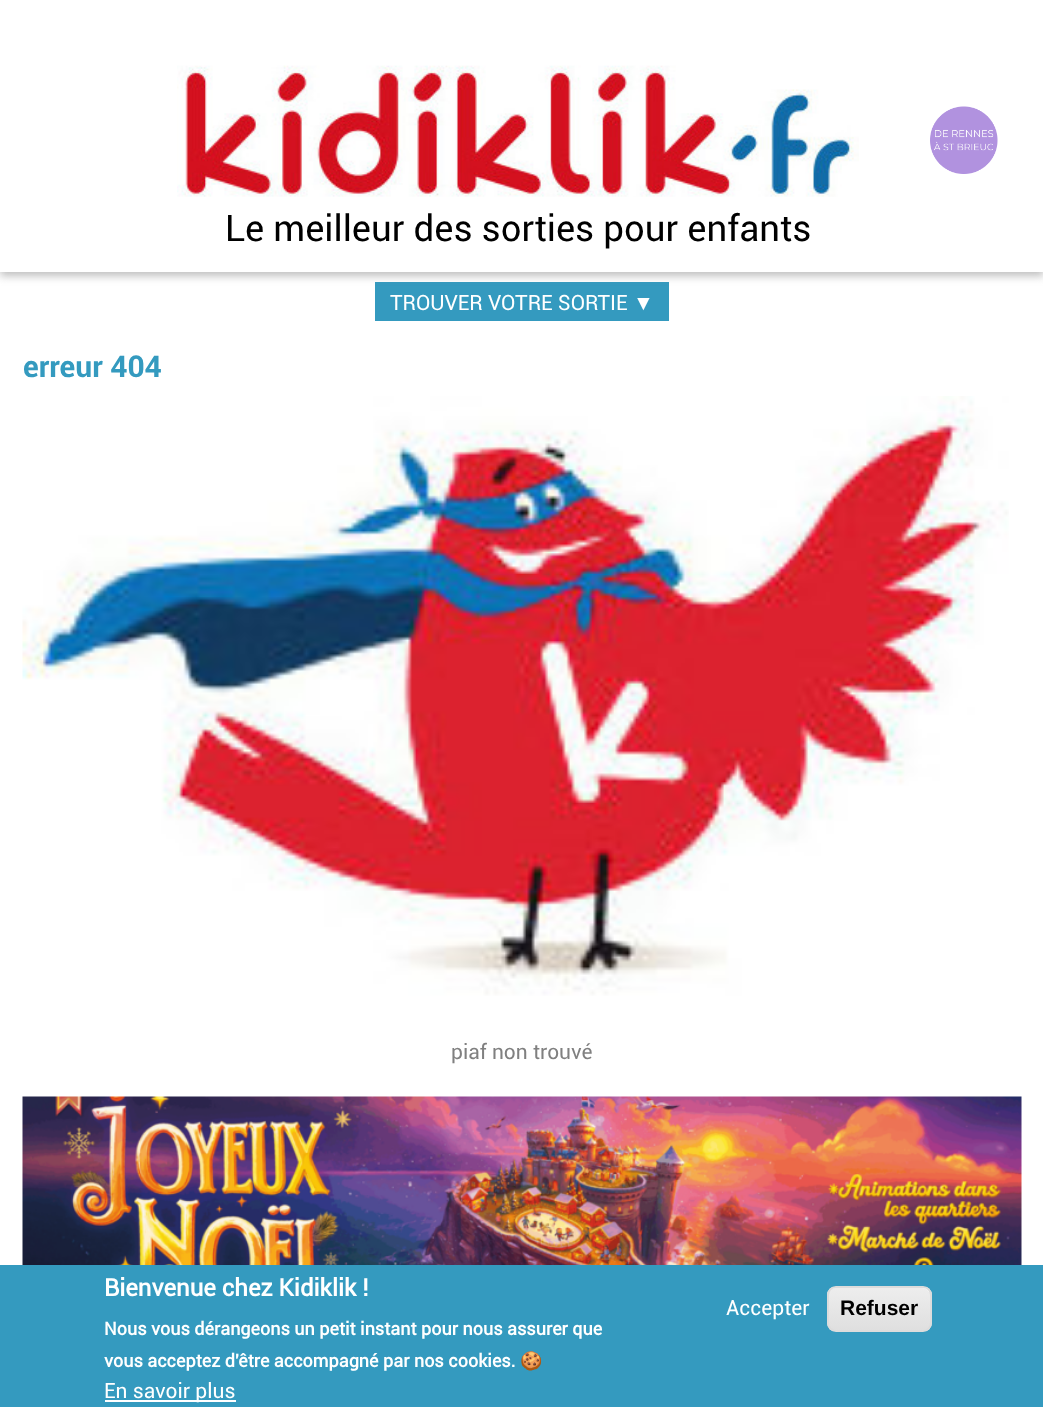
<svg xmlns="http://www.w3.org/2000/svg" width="1043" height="1407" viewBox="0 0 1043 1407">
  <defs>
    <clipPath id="clip1"><rect x="827" y="1286" width="105" height="46" rx="9"/></clipPath>
    <linearGradient id="g1" gradientUnits="userSpaceOnUse" x1="879" y1="1287" x2="879" y2="1331"><stop offset="0.05" stop-color="#ededed"/><stop offset="1" stop-color="#dfdfdf"/></linearGradient>
  </defs>
  <rect width="100%" height="100%" fill="#fff"/>
  <path d="M375 282h294v39H375z" fill="#349abf"/>
  <path d="M0 5h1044v271H0z" fill="#7d7d7d80" filter="blur(4px)"/>
  <path d="M0 0h1043v272H0z" fill="#fff"/>
  <image x="177" y="65" width="682" height="132" href="img/1.png"/>
  <image x="930" y="106" width="68" height="68" href="img/2.png"/>
  <image x="22" y="396" width="987" height="600" href="img/3.png"/>
  <image x="22" y="1096" width="1000" height="169" href="img/4.png"/>
  <path d="M0 1265h1043v142H0z" fill="#349abf"/>
  <path d="M105 1400h131v2H105z" fill="#fff"/>
  <g clip-path="url(#clip1)">
    <path d="M827 1287h105v44H827z" fill="url(#g1)"/>
  </g>
  <path d="M836 1288H922C927 1288 930 1292 930 1296C930 1284 916 1287 908 1287H850C842 1287 828 1284 828 1296C828 1292 831 1288 836 1288Z" fill="#fff"/>
  <rect x="828" y="1287" width="103" height="44" rx="8" fill="none" stroke="#dcdcdc" stroke-width="2"/>
  <text x="225" y="241" font-family="Roboto" font-size="36.5" fill="#000">Le meilleur des sorties pour enfants</text>
  <text x="390" y="310" font-family="Roboto" font-size="21" fill="#fff">TROUVER VOTRE SORTIE</text>
  <text x="633" y="310" font-family="Liberation Serif" font-size="21" fill="#fff">▼</text>
  <text x="23" y="377" font-family="Roboto" font-size="30" font-weight="bold" fill="#349abf">erreur 404</text>
  <text x="451" y="1059" font-family="Roboto" font-size="21" fill="#808080">piaf non trouvé</text>
  <text x="104" y="1296" font-family="'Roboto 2'" font-size="24" font-weight="bold" fill="#fff">Bienvenue chez Kidiklik !</text>
  <g font-family="'Roboto 2'" font-size="18" font-weight="bold" fill="#fff">
    <text x="104" y="1335">Nous vous dérangeons un petit instant pour nous assurer que</text>
    <text x="104" y="1367">vous acceptez d'être accompagné par nos cookies.</text>
  </g>
  <text x="520" y="1367" font-family="Noto Color Emoji" font-size="18" font-weight="bold" fill="#fff">🍪</text>
  <g font-family="Roboto" font-size="21" fill="#fff">
    <text x="104" y="1398">En savoir plus</text>
    <text x="726" y="1315">Accepter</text>
  </g>
  <text x="840" y="1315" font-family="Liberation Sans" font-size="21" font-weight="bold" fill="#000">Refuser</text>
</svg>
